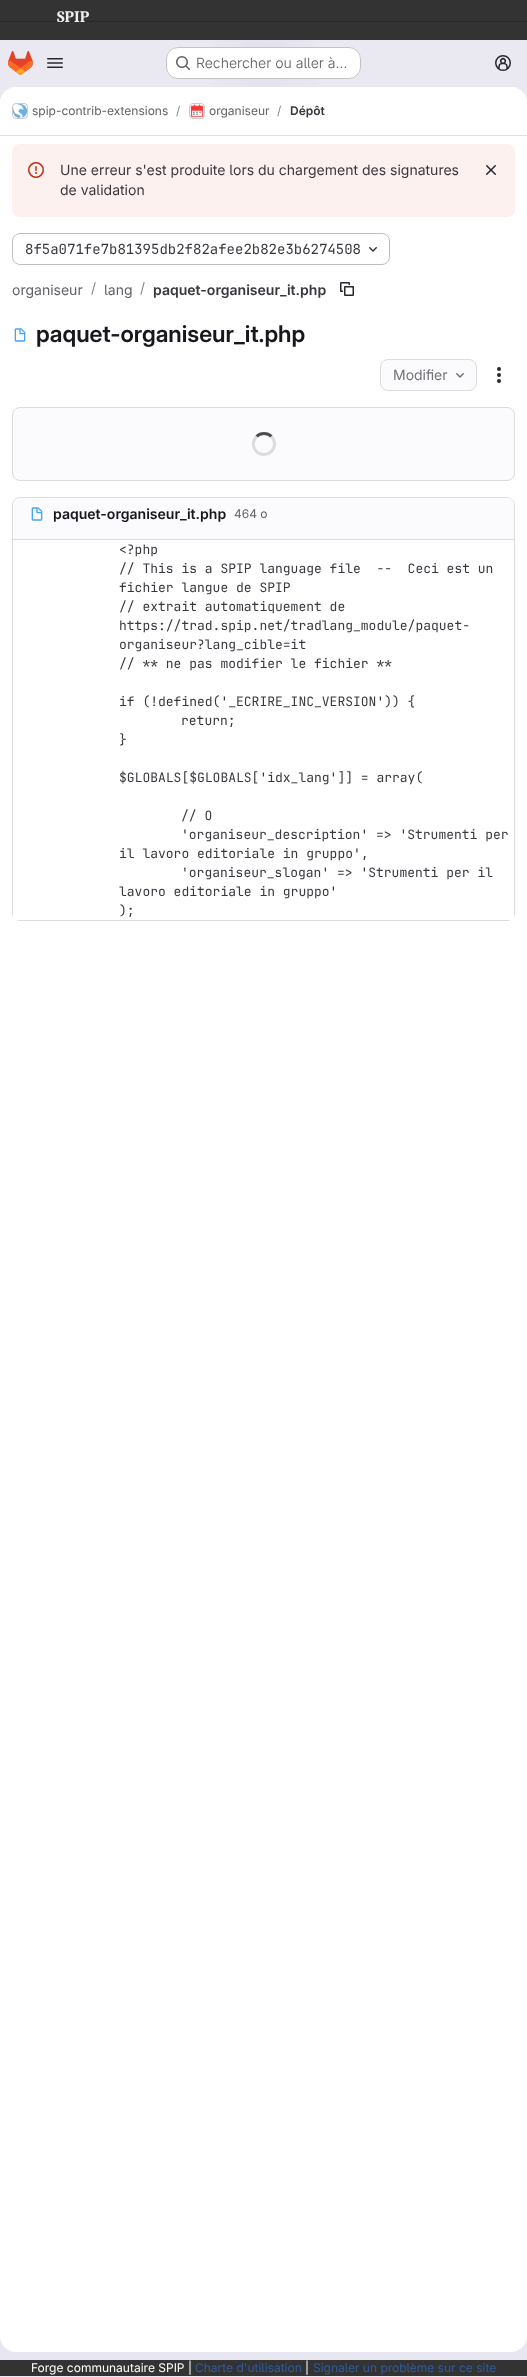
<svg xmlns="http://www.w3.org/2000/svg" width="527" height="2377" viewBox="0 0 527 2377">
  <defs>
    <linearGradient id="g1" gradientUnits="userSpaceOnUse" x1="475" y1="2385" x2="52" y2="-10"><stop offset="0" stop-color="#e8e6f0"/><stop offset="0.7" stop-color="#eae9f2"/></linearGradient>
    <radialGradient id="g2" gradientUnits="userSpaceOnUse" cx="0" cy="0" r="1" gradientTransform="matrix(264 0 0 2377 264 -1)"><stop offset="0" stop-color="#e4e2ed"/><stop offset="0.27" stop-color="#e4e2ed" stop-opacity="0"/></radialGradient>
    <radialGradient id="g3" gradientUnits="userSpaceOnUse" cx="0" cy="0" r="1" gradientTransform="matrix(264 0 0 2377 264 -1)"><stop offset="0" stop-color="#e4e2ec"/><stop offset="0.19" stop-color="#e4e2ec" stop-opacity="0"/></radialGradient>
  </defs>
  <rect width="100%" height="100%" fill="#eae9f2"/>
  <path d="M0 2088h527v272H0z" fill="url(#g1)"/>
  <path d="M213 40h102v47H213z" fill="url(#g2)"/>
  <path d="M245 42h38v33H245z" fill="url(#g3)"/>
  <path d="M0 0h527v40H0z" fill="#333"/>
  <path d="M0 21h527v1H0z" fill="#292929"/>
  <image x="8" y="51" width="25" height="24" href="img/1.png"/>
  <image x="47" y="58" width="16" height="10" href="img/2.png"/>
  <rect x="166" y="47" width="195" height="32" rx="12" fill="#fff"/>
  <rect x="166.5" y="47.5" width="194" height="31" rx="11.5" fill="none" stroke="#0505063d"/>
  <image x="176" y="56" width="14" height="14" href="img/3.png"/>
  <image x="495" y="55" width="16" height="16" href="img/4.png"/>
  <rect y="87" width="527" height="2265" rx="16" fill="#fff"/>
  <path d="M16 87H511C520 87 527 94 527 103V136H0V103C0 94 7 87 16 87Z" fill="#fff"/>
  <path d="M0 135h527v1H0z" fill="#e1dfec"/>
  <rect x="12.5" y="103.5" width="15" height="15" rx="3.5" fill="none" stroke="#dcdcde"/>
  <image x="13" y="104" width="14" height="14" href="img/5.png"/>
  <rect x="12.5" y="103.5" width="15" height="15" rx="3.5" fill="none" stroke="#05050614"/>
  <rect x="189.5" y="103.5" width="15" height="15" rx="3.5" fill="none" stroke="#dcdcde"/>
  <image x="190" y="104" width="14" height="14" href="img/6.png"/>
  <rect x="189.5" y="103.5" width="15" height="15" rx="3.5" fill="none" stroke="#05050614"/>
  <rect x="12" y="144" width="503" height="73" rx="8" fill="#fcf1ef"/>
  <image x="28" y="162" width="16" height="16" href="img/7.png"/>
  <image x="486" y="165" width="10" height="10" href="img/8.png"/>
  <rect x="12.5" y="233.5" width="377" height="31" rx="7.5" fill="none" stroke="#bfbfc3"/>
  <image x="369" y="247" width="8" height="5" href="img/9.png"/>
  <image x="340" y="282" width="14" height="14" href="img/10.png"/>
  <image x="14" y="328" width="12" height="14" href="img/11.png"/>
  <rect x="380.5" y="359.5" width="96" height="31" rx="7.5" fill="#fbfafd" stroke="#dcdcde"/>
  <image x="456" y="373" width="8" height="5" href="img/12.png"/>
  <image x="497" y="367" width="4" height="16" href="img/13.png"/>
  <rect x="12.5" y="407.5" width="502" height="73" rx="7.5" fill="#fbfafd" stroke="#dcdcde"/>
  <path d="M256.5 436.5C260.5 432.5 267.5 432.5 271.5 436.5" fill="none" stroke="#4c4b51" stroke-width="3"/>
  <path d="M271.5 436.5C273.5 438.5 274.5 441 274.5 444C274.5 456.5 256 458.5 253.5 446C253 442.5 254 439 256.5 436.5" fill="none" stroke="#dcdcde" stroke-width="3"/>
  <rect x="12.5" y="497.5" width="502" height="423" rx="7.5" fill="none" stroke="#dcdcde"/>
  <path d="M20 498H507C511 498 514 501 514 505V540H13V505C13 501 16 498 20 498Z" fill="#fbfafd"/>
  <path d="M13 539h501v1H13z" fill="#dcdcde"/>
  <image x="31" y="507" width="12" height="14" href="img/14.png"/>
  <path d="M13 540H514V916C514 918 512 920 510 920H17C15 920 13 918 13 916Z" fill="#fff"/>
  <path d="M13 540H109V920H17C15 920 13 918 13 916Z" fill="#fff"/>
  <path d="M117 540H514V916C514 918 512 920 510 920H117Z" fill="#fff"/>
  <path d="M0 2360h527v16H0z" fill="#333"/>
  <text x="57" y="22" font-family="Caladea" font-size="16" font-weight="bold" fill="#eee">SPIP</text>
  <text x="196" y="68" font-family="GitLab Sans" font-size="14" font-weight="300" fill="#626168">Rechercher ou aller à…</text>
  <text x="32" y="115" font-family="GitLab Sans" font-size="12" fill="#626168">spip-contrib-extensions</text>
  <text x="176" y="115" font-family="GitLab Sans" font-size="12" fill="#89888d">/</text>
  <text x="209" y="115" font-family="GitLab Sans" font-size="12" fill="#626168">organiseur</text>
  <text x="277" y="115" font-family="GitLab Sans" font-size="12" fill="#89888d">/</text>
  <text x="290" y="115" font-family="'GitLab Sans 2'" font-size="12" font-weight="600" fill="#3a383f">Dépôt</text>
  <g font-family="GitLab Sans" font-size="14" fill="#3a383f">
    <text x="60" y="175">Une erreur s'est produite lors du chargement des signatures</text>
    <text x="60" y="195">de validation</text>
  </g>
  <text x="25" y="254" font-family="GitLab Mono" font-size="14" fill="#3a383f">8f5a071fe7b81395db2f82afee2b82e3b6274508</text>
  <text x="12" y="295" font-family="GitLab Sans" font-size="14" fill="#626168">organiseur</text>
  <text x="91" y="293" font-family="GitLab Sans" font-size="14" fill="#89888d">/</text>
  <text x="104" y="295" font-family="GitLab Sans" font-size="14" fill="#626168">lang</text>
  <text x="140" y="293" font-family="GitLab Sans" font-size="14" fill="#89888d">/</text>
  <text x="153" y="295" font-family="'GitLab Sans 2'" font-size="14" font-weight="600" fill="#3a383f">paquet-organiseur_it.php</text>
  <text x="36" y="342" font-family="GitLab Sans" font-size="23" font-weight="600" fill="#18171d">paquet-organiseur_it.php</text>
  <text x="393" y="380" font-family="GitLab Sans" font-size="14" fill="#737278">Modifier</text>
  <text x="53" y="519" font-family="'GitLab Sans 2'" font-size="14" font-weight="600" fill="#18171d">paquet-organiseur_it.php</text>
  <text x="234" y="518" font-family="GitLab Sans" font-size="12" fill="#626168">464 o</text>
  <g font-family="GitLab Mono" font-size="13" fill="#3a383f">
    <text x="119" y="554">&lt;?php</text>
    <text x="119" y="573" xml:space="preserve">// This is a SPIP language file  --  Ceci est un</text>
    <text x="119" y="592">fichier langue de SPIP</text>
    <text x="119" y="611">// extrait automatiquement de</text>
    <text x="119" y="630">https://trad.spip.net/tradlang_module/paquet-</text>
    <text x="119" y="649">organiseur?lang_cible=it</text>
    <text x="119" y="668">// ** ne pas modifier le fichier **</text>
    <text x="119" y="706">if (!defined('_ECRIRE_INC_VERSION')) {</text>
    <text x="181" y="725">return;</text>
    <text x="119" y="744">}</text>
    <text x="119" y="782">$GLOBALS[$GLOBALS['idx_lang']] = array(</text>
    <text x="181" y="820">// O</text>
    <text x="181" y="839">'organiseur_description' =&gt; 'Strumenti per</text>
    <text x="119" y="858">il lavoro editoriale in gruppo',</text>
    <text x="181" y="877">'organiseur_slogan' =&gt; 'Strumenti per il</text>
    <text x="119" y="896">lavoro editoriale in gruppo'</text>
    <text x="119" y="915">);</text>
  </g>
  <text x="31" y="2372" font-family="GitLab Sans" font-size="12" fill="#fff">Forge communautaire SPIP |</text>
  <text x="195" y="2372" font-family="GitLab Sans" font-size="12" fill="#2f5ca0">Charte d'utilisation</text>
  <text x="305" y="2372" font-family="GitLab Sans" font-size="12" fill="#fff">|</text>
  <text x="313" y="2372" font-family="GitLab Sans" font-size="12" fill="#2f5ca0">Signaler un problème sur ce site</text>
</svg>
